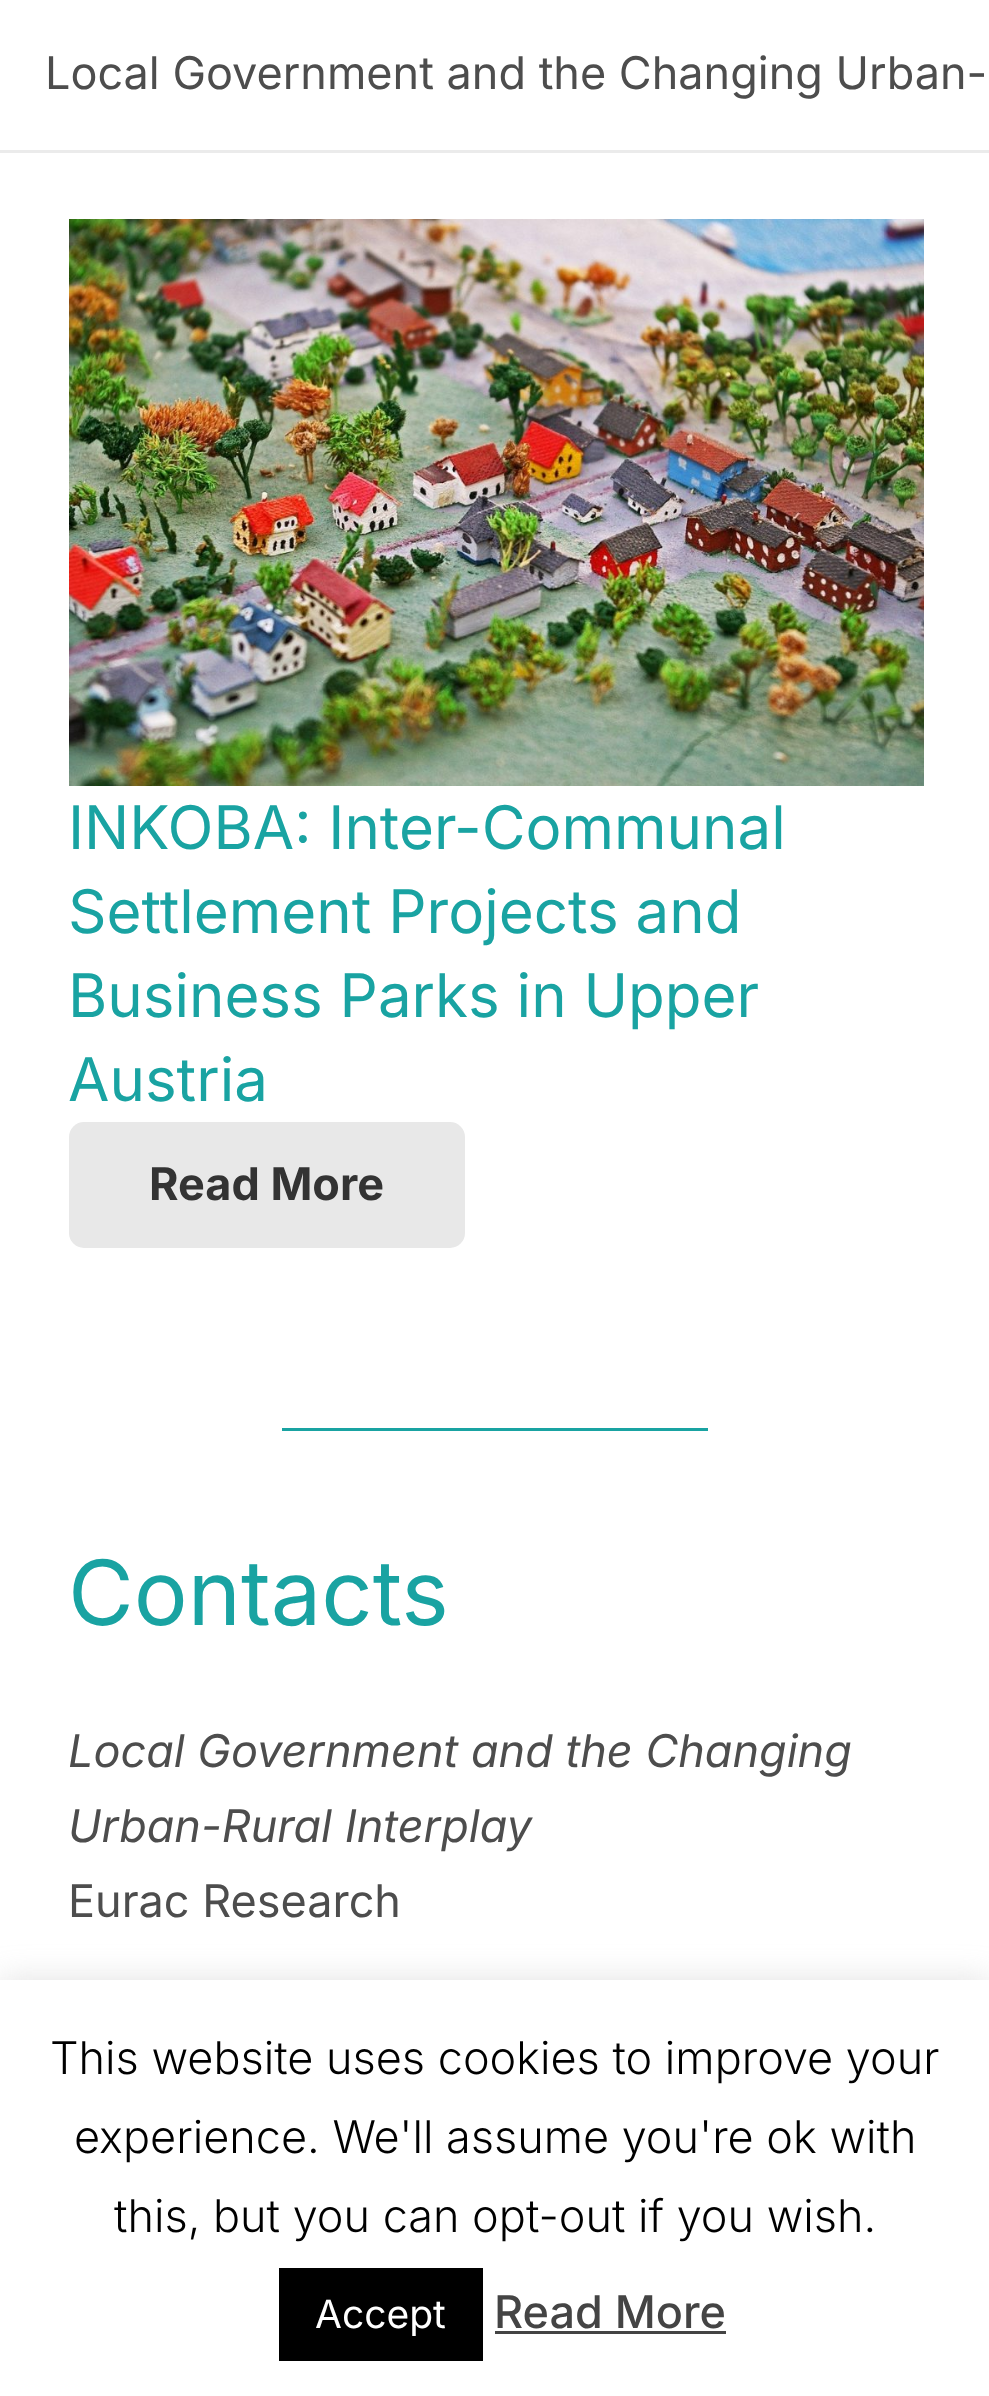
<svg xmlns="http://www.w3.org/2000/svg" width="989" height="2396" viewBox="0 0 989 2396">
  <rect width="100%" height="100%" fill="#fff"/>
  <path d="M0 150h989v3H0z" fill="#ebebeb"/>
  <image x="69" y="219" width="855" height="567" href="img/1.png"/>
  <rect x="69" y="1122" width="396" height="126" rx="15" fill="#e8e8e8"/>
  <path d="M282 1428h426v3H282z" fill="#19a3a2"/>
  <path d="M0 1977h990v417H0z" fill="#acabab4d" filter="blur(15px)"/>
  <path d="M0 1980h989v416H0z" fill="#fff"/>
  <path d="M279 2268h204v93H279z" fill="#000"/>
  <path d="M495 2331h231v3H495z" fill="#444"/>
  <text x="45" y="89" font-family="Inter" font-size="45" fill="#4d4d4d">Local Government and the Changing Urban-</text>
  <g font-family="Inter" font-size="60" fill="#19a3a2">
    <text x="68" y="849">INKOBA: Inter-Communal</text>
    <text x="68" y="933">Settlement Projects and</text>
    <text x="68" y="1017">Business Parks in Upper</text>
    <text x="68" y="1101">Austria</text>
  </g>
  <text x="149" y="1200" font-family="Inter" font-size="45" font-weight="bold" fill="#333">Read More</text>
  <text x="68" y="1625" font-family="Inter" font-size="90" fill="#19a3a2">Contacts</text>
  <g font-family="Inter" font-size="45" font-style="italic" fill="#4d4d4d">
    <text x="68" y="1767">Local Government and the Changing</text>
    <text x="68" y="1842">Urban-Rural Interplay</text>
  </g>
  <text x="68" y="1917" font-family="Inter" font-size="45" fill="#4d4d4d">Eurac Research</text>
  <g font-family="Inter" font-size="45" font-weight="300" fill="#000">
    <text x="50" y="2074">This website uses cookies to improve your</text>
    <text x="74" y="2153">experience. We'll assume you're ok with</text>
    <text x="114" y="2232">this, but you can opt-out if you wish.</text>
  </g>
  <text x="315" y="2328" font-family="Inter" font-size="39" fill="#fff">Accept</text>
  <text x="494" y="2328" font-family="Inter" font-size="45" font-weight="500" fill="#444">Read More</text>
</svg>
